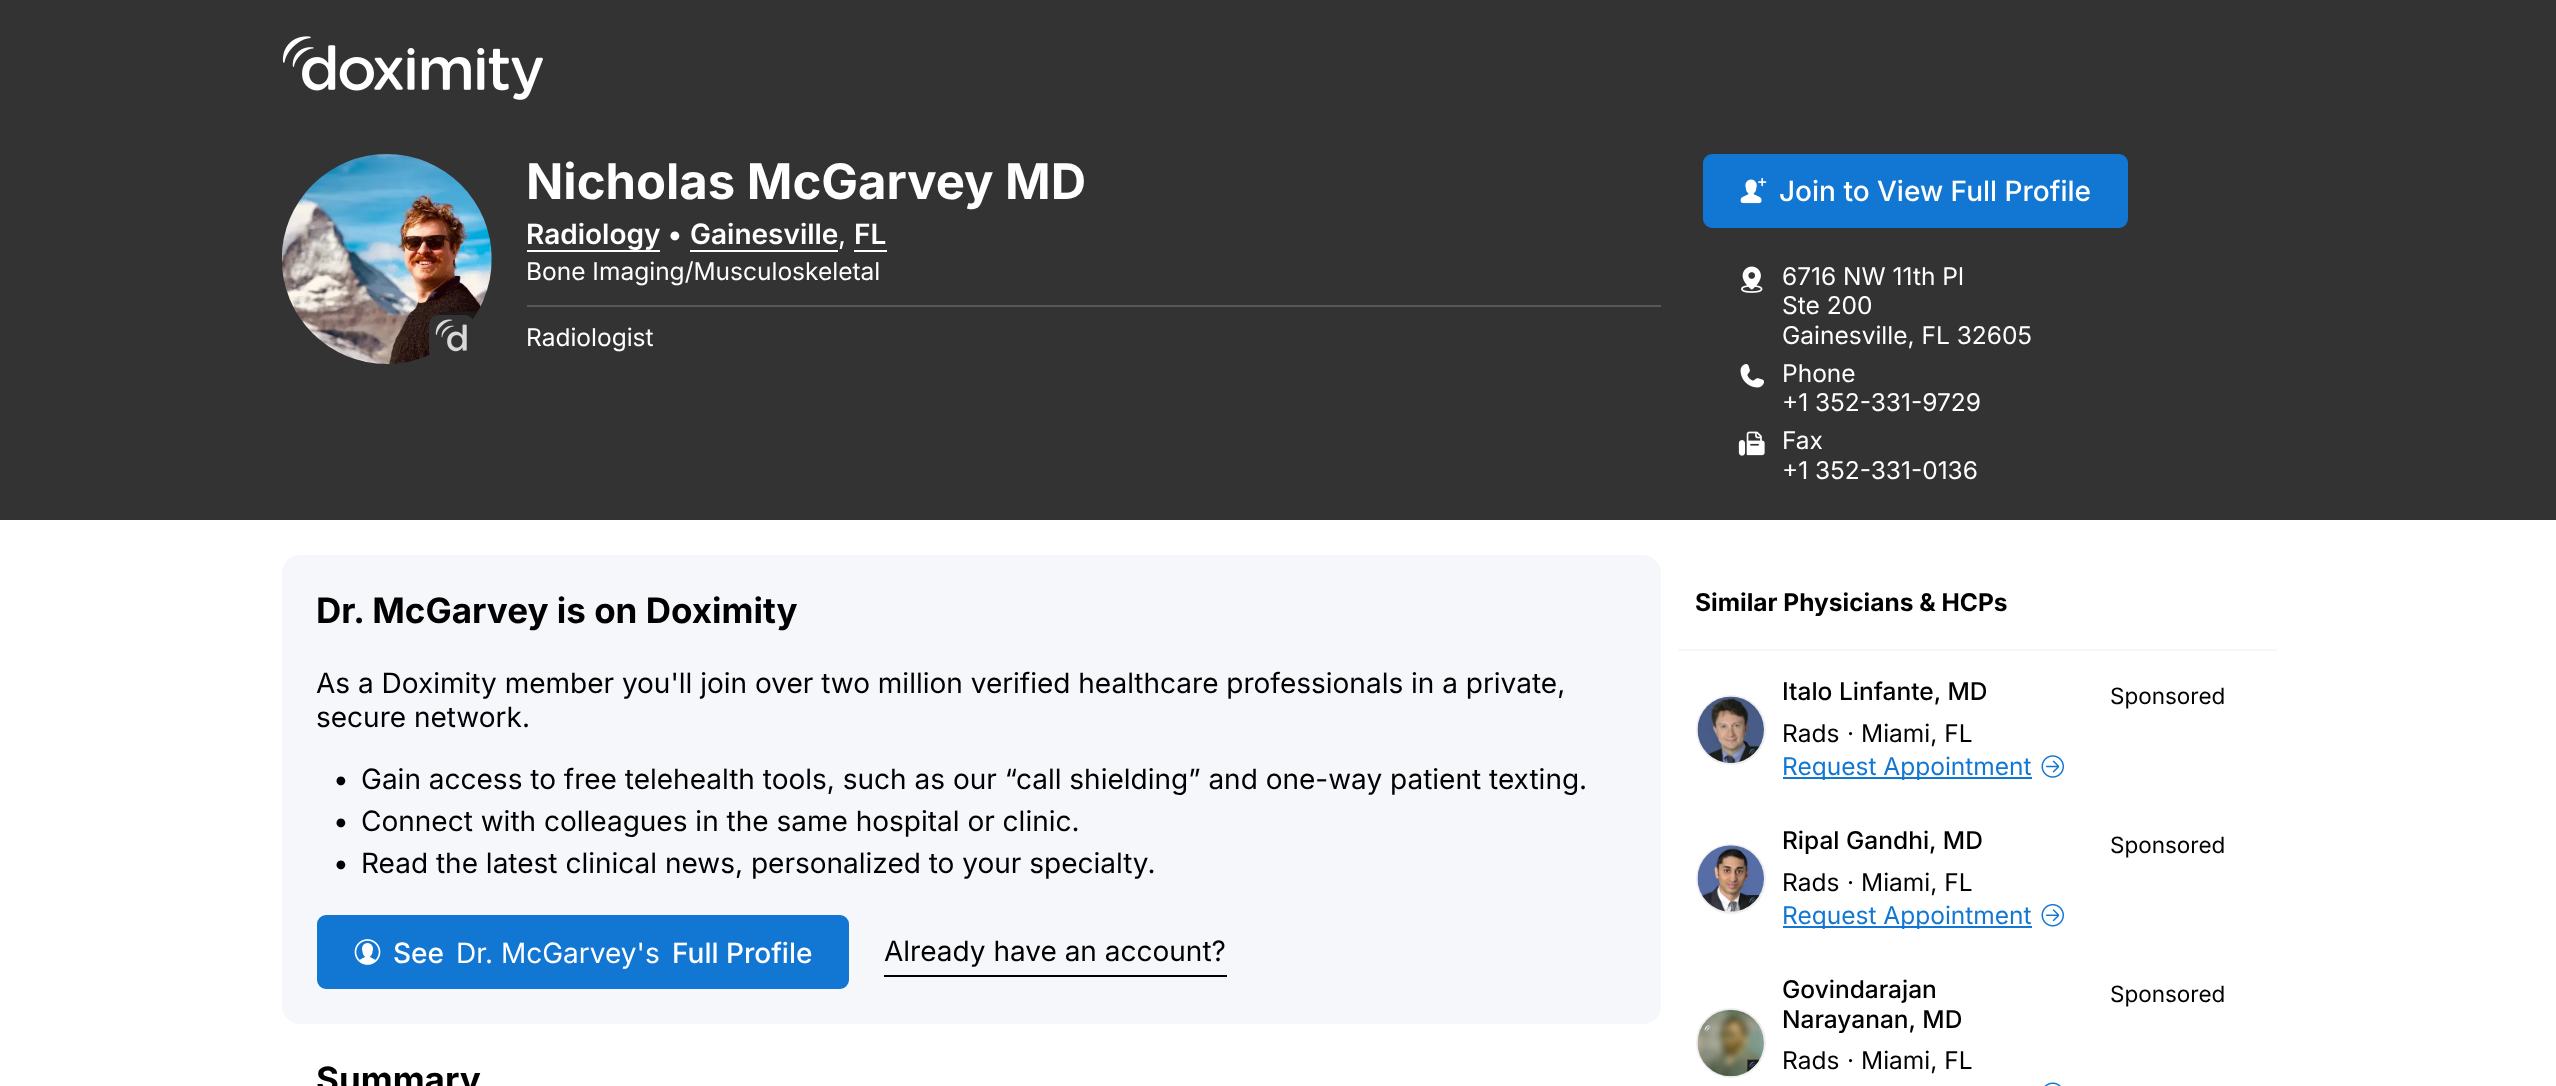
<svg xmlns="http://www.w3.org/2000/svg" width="2556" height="1086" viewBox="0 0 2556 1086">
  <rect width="100%" height="100%" fill="#fff"/>
  <path d="M0 0h2556v520H0z" fill="#333"/>
  <image x="282" y="36" width="261" height="64" href="img/1.png"/>
  <image x="281" y="154" width="211" height="210" href="img/2.png"/>
  <rect x="429" y="315" width="45" height="46" rx="9" fill="#333"/>
  <image x="435" y="319" width="32" height="33" href="img/3.png"/>
  <path d="M527 250h133v2H527z" fill="#fff"/>
  <path d="M690 250h148v2H690z" fill="#fff"/>
  <path d="M854 250h33v2H854z" fill="#fff"/>
  <path d="M527 305h1134v2H527z" fill="#585858"/>
  <rect x="1704" y="155" width="423" height="72" rx="8" fill="#1276d3" stroke="#1276d3" stroke-width="2"/>
  <image x="1740" y="177" width="27" height="27" href="img/4.png"/>
  <image x="1741" y="266" width="22" height="27" href="img/5.png"/>
  <image x="1740" y="364" width="24" height="24" href="img/6.png"/>
  <image x="1738" y="431" width="27" height="25" href="img/7.png"/>
  <rect x="282" y="555" width="1379" height="469" rx="18" fill="#f6f7fb"/>
  <rect x="318" y="916" width="530" height="72" rx="8" fill="#1276d3" stroke="#1276d3" stroke-width="2"/>
  <image x="354" y="939" width="27" height="26" href="img/8.png"/>
  <path d="M884 975h343v2H884z" fill="#000"/>
  <path d="M1678 649h599v2H1678z" fill="#f6f7fb"/>
  <circle cx="1731" cy="730" r="34" fill="none" stroke="#eee" stroke-width="2"/>
  <image x="1697" y="696" width="67" height="67" href="img/9.png"/>
  <path d="M1783 777h249v2H1783z" fill="#1276d3"/>
  <image x="2041" y="755" width="23" height="23" href="img/10.png"/>
  <circle cx="1731" cy="879" r="34" fill="none" stroke="#eee" stroke-width="2"/>
  <image x="1697" y="845" width="67" height="67" href="img/11.png"/>
  <path d="M1783 926h249v2H1783z" fill="#1276d3"/>
  <image x="2041" y="904" width="23" height="23" href="img/12.png"/>
  <circle cx="1731" cy="1043" r="34" fill="none" stroke="#eee" stroke-width="2"/>
  <image x="1697" y="1009" width="67" height="68" href="img/13.png"/>
  <image x="2044" y="1082" width="17" height="4" href="img/14.png"/>
  <text x="526" y="199" font-family="Inter" font-size="49" font-weight="bold" fill="#fff">Nicholas McGarvey MD</text>
  <text x="526" y="244" font-family="Inter" font-size="28" font-weight="600" fill="#fff">Radiology</text>
  <text x="667" y="244" font-family="Inter" font-size="28" fill="#fff">•</text>
  <g font-family="Inter" font-size="28" font-weight="600" fill="#fff">
    <text x="690" y="244">Gainesville</text>
    <text x="854" y="244">FL</text>
  </g>
  <text x="838" y="244" font-family="Inter" font-size="28" fill="#fff">,</text>
  <g font-family="Inter" font-size="24.5" fill="#fff">
    <text x="526" y="280">Bone Imaging/Musculoskeletal</text>
    <text x="526" y="346">Radiologist</text>
  </g>
  <text x="1779" y="201" font-family="Inter" font-size="28" font-weight="500" fill="#fff">Join to View Full Profile</text>
  <g font-family="Inter" font-size="24.5" fill="#fff">
    <text x="1782" y="285">6716 NW 11th Pl</text>
    <text x="1782" y="314">Ste 200</text>
    <text x="1782" y="344">Gainesville, FL 32605</text>
    <text x="1782" y="382">Phone</text>
    <text x="1782" y="411">+1 352-331-9729</text>
    <text x="1782" y="449">Fax</text>
    <text x="1782" y="479">+1 352-331-0136</text>
  </g>
  <text x="316" y="623" font-family="Inter" font-size="35" font-weight="bold" fill="#000">Dr. McGarvey is on Doximity</text>
  <g font-family="Inter" font-size="28" fill="#000">
    <text x="316" y="693">As a Doximity member you'll join over two million verified healthcare professionals in a private,</text>
    <text x="316" y="727">secure network.</text>
    <text x="333" y="789">•</text>
    <text x="361" y="789">Gain access to free telehealth tools, such as our “call shielding” and one-way patient texting.</text>
    <text x="333" y="831">•</text>
    <text x="361" y="831">Connect with colleagues in the same hospital or clinic.</text>
    <text x="333" y="873">•</text>
    <text x="361" y="873">Read the latest clinical news, personalized to your specialty.</text>
  </g>
  <text x="393" y="963" font-family="Inter" font-size="28" font-weight="500" fill="#fff">See</text>
  <text x="456" y="963" font-family="Inter" font-size="28" fill="#fff">Dr. McGarvey's</text>
  <text x="672" y="963" font-family="Inter" font-size="28" font-weight="500" fill="#fff">Full Profile</text>
  <text x="884" y="961" font-family="Inter" font-size="28" fill="#000">Already have an account?</text>
  <text x="316" y="1092" font-family="Inter" font-size="35" font-weight="bold" fill="#000">Summary</text>
  <text x="1695" y="611" font-family="Inter" font-size="24.5" font-weight="bold" fill="#000">Similar Physicians &amp; HCPs</text>
  <text x="1782" y="700" font-family="Inter" font-size="24.5" font-weight="500" fill="#000">Italo Linfante, MD</text>
  <g font-family="Inter" font-size="24.5" fill="#000">
    <text x="1782" y="742">Rads</text>
    <text x="1847" y="742">·</text>
    <text x="1861" y="742">Miami, FL</text>
  </g>
  <text x="2110" y="704" font-family="Inter" font-size="22.5" fill="#000">Sponsored</text>
  <text x="1782" y="775" font-family="Inter" font-size="24.5" fill="#1276d3">Request Appointment</text>
  <text x="1782" y="849" font-family="Inter" font-size="24.5" font-weight="500" fill="#000">Ripal Gandhi, MD</text>
  <g font-family="Inter" font-size="24.5" fill="#000">
    <text x="1782" y="891">Rads</text>
    <text x="1847" y="891">·</text>
    <text x="1861" y="891">Miami, FL</text>
  </g>
  <text x="2110" y="853" font-family="Inter" font-size="22.5" fill="#000">Sponsored</text>
  <text x="1782" y="924" font-family="Inter" font-size="24.5" fill="#1276d3">Request Appointment</text>
  <g font-family="Inter" font-size="24.5" font-weight="500" fill="#000">
    <text x="1782" y="998">Govindarajan</text>
    <text x="1782" y="1028">Narayanan, MD</text>
  </g>
  <g font-family="Inter" font-size="24.5" fill="#000">
    <text x="1782" y="1069">Rads</text>
    <text x="1847" y="1069">·</text>
    <text x="1861" y="1069">Miami, FL</text>
  </g>
  <text x="2110" y="1002" font-family="Inter" font-size="22.5" fill="#000">Sponsored</text>
</svg>
